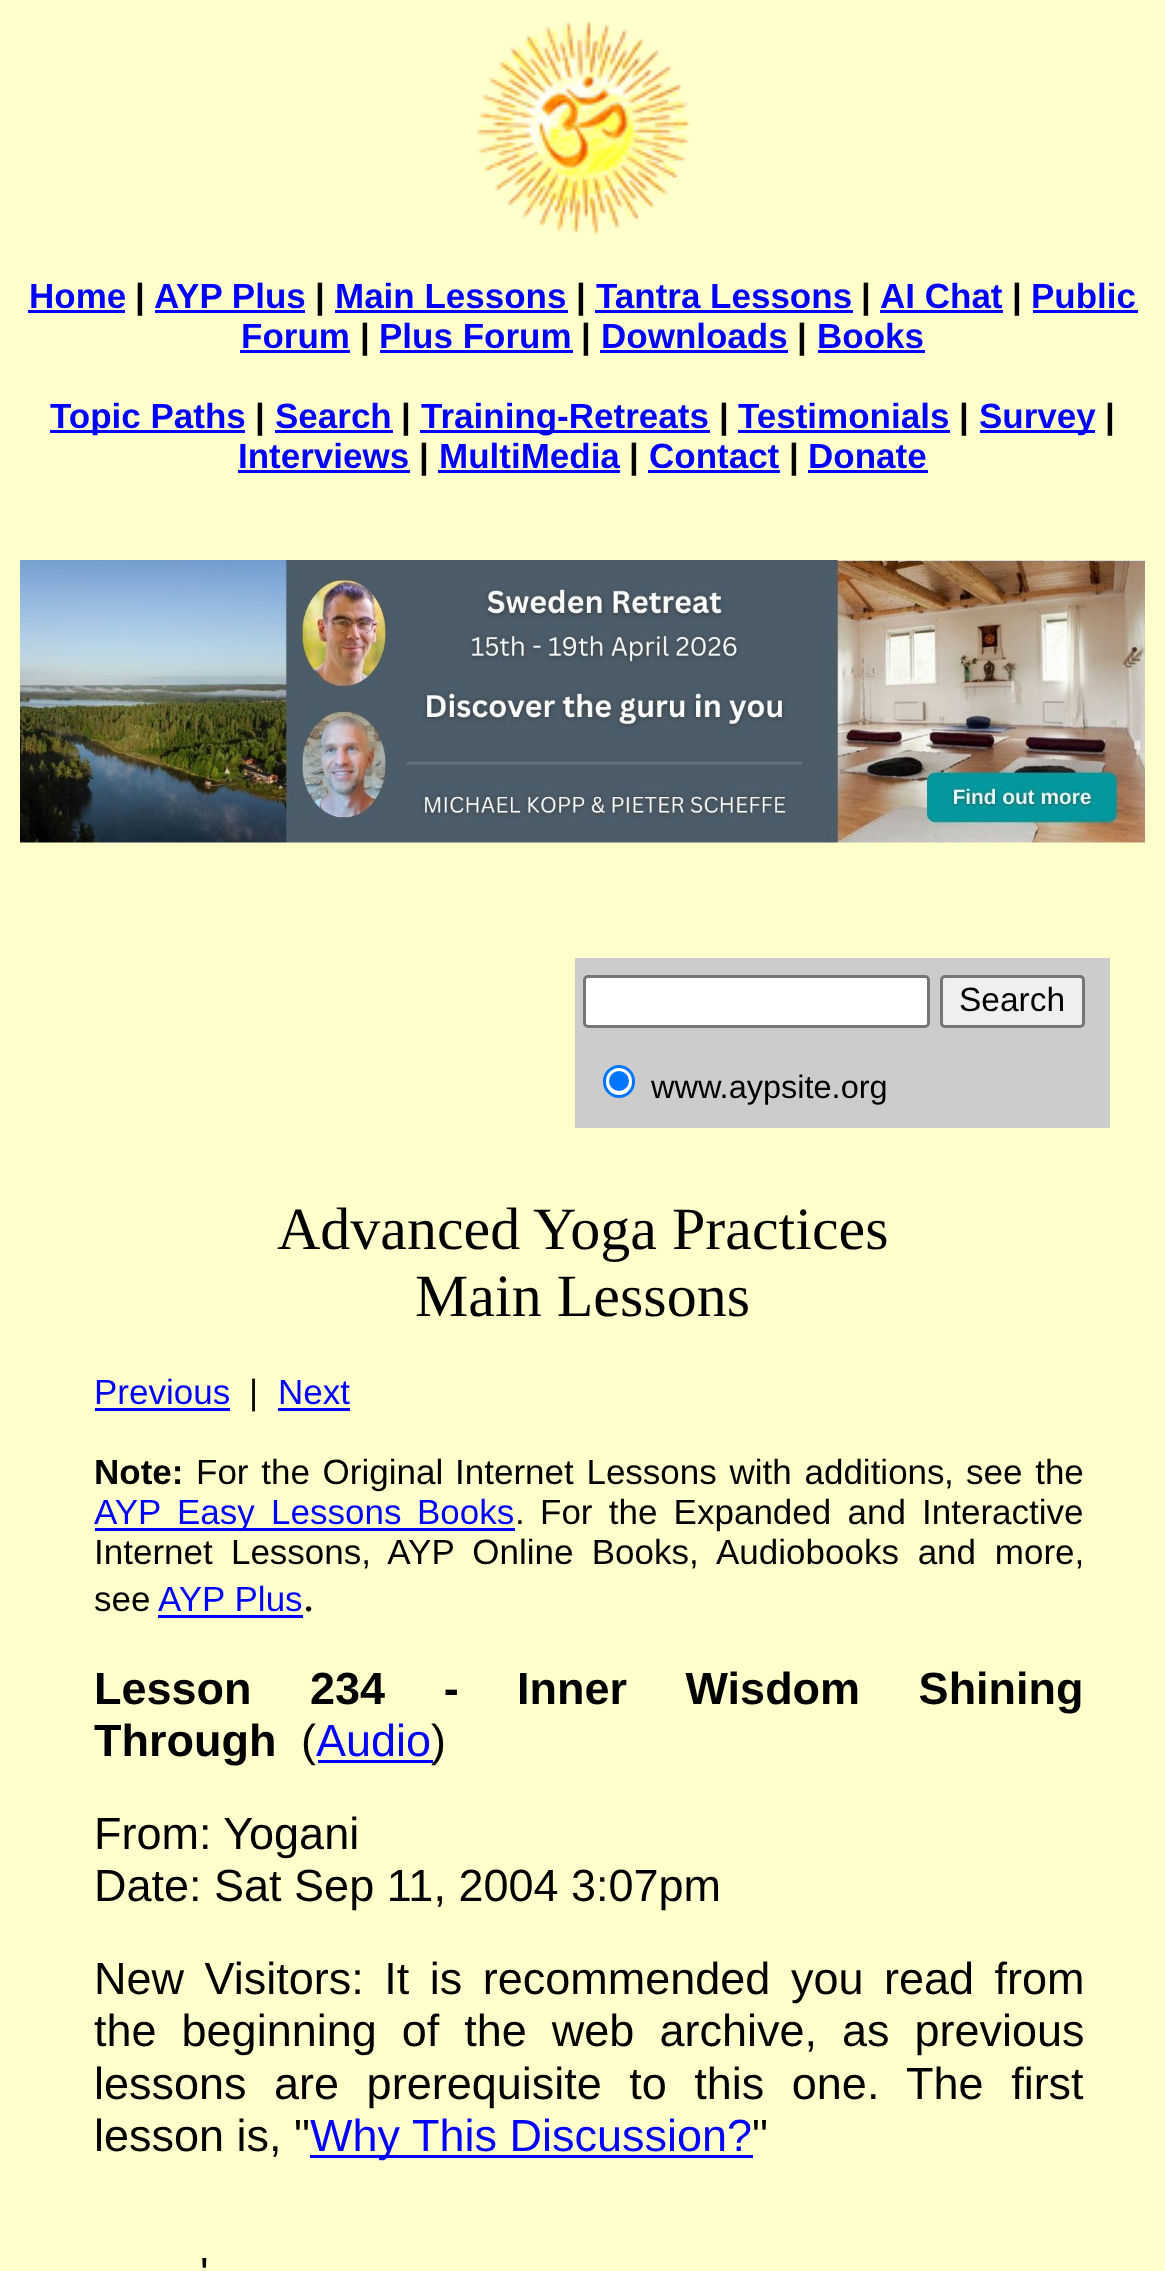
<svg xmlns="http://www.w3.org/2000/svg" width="1165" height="2271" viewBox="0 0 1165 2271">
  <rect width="100%" height="100%" fill="#ffc"/>
  <image x="475" y="20" width="215" height="215" href="img/1.png"/>
  <path d="M28 310h97v3H28z" fill="#00f"/>
  <path d="M155 310h150v3H155z" fill="#00f"/>
  <path d="M335 310h233v3H335z" fill="#00f"/>
  <path d="M595 310h258v3H595z" fill="#00f"/>
  <path d="M880 310h123v3H880z" fill="#00f"/>
  <path d="M1033 310h105v3H1033z" fill="#00f"/>
  <path d="M240 350h110v3H240z" fill="#00f"/>
  <path d="M380 350h193v3H380z" fill="#00f"/>
  <path d="M600 350h188v3H600z" fill="#00f"/>
  <path d="M818 350h107v3H818z" fill="#00f"/>
  <path d="M50 430h195v3H50z" fill="#00f"/>
  <path d="M275 430h118v3H275z" fill="#00f"/>
  <path d="M420 430h290v3H420z" fill="#00f"/>
  <path d="M738 430h212v3H738z" fill="#00f"/>
  <path d="M980 430h115v3H980z" fill="#00f"/>
  <path d="M238 470h172v3H238z" fill="#00f"/>
  <path d="M438 470h182v3H438z" fill="#00f"/>
  <path d="M648 470h132v3H648z" fill="#00f"/>
  <path d="M808 470h120v3H808z" fill="#00f"/>
  <image x="20" y="560" width="1125" height="283" href="img/2.png"/>
  <path d="M575 958h535v170H575z" fill="#ccc"/>
  <rect x="584.5" y="976.5" width="344" height="50" rx="3.5" fill="#fff" stroke="#767676" stroke-width="3"/>
  <rect x="941.5" y="976.5" width="142" height="50" rx="3.5" fill="#efefef" stroke="#767676" stroke-width="3"/>
  <rect x="604.5" y="1066.5" width="29" height="30" rx="14.5" fill="#fff" stroke="#0075ff" stroke-width="3"/>
  <circle cx="619" cy="1081" r="10" fill="#0075ff"/>
  <path d="M95 1408h135v3H95z" fill="#00f"/>
  <path d="M278 1408h72v3H278z" fill="#00f"/>
  <path d="M95 1528h420v3H95z" fill="#00f"/>
  <path d="M158 1615h145v3H158z" fill="#00f"/>
  <path d="M318 1760h115v3H318z" fill="#00f"/>
  <path d="M310 2155h443v3H310z" fill="#00f"/>
  <text x="29" y="308" font-family="Liberation Sans" font-size="35" font-weight="bold" fill="#00f">Home</text>
  <text x="135" y="308" font-family="Liberation Sans" font-size="35" font-weight="bold" fill="#000">|</text>
  <text x="154" y="308" font-family="Liberation Sans" font-size="35" font-weight="bold" fill="#00f">AYP Plus</text>
  <text x="315" y="308" font-family="Liberation Sans" font-size="35" font-weight="bold" fill="#000">|</text>
  <text x="335" y="308" font-family="Liberation Sans" font-size="35" font-weight="bold" fill="#00f">Main Lessons</text>
  <text x="576" y="308" font-family="Liberation Sans" font-size="35" font-weight="bold" fill="#000">|</text>
  <text x="596" y="308" font-family="Liberation Sans" font-size="35" font-weight="bold" fill="#00f">Tantra Lessons</text>
  <text x="861" y="308" font-family="Liberation Sans" font-size="35" font-weight="bold" fill="#000">|</text>
  <text x="880" y="308" font-family="Liberation Sans" font-size="35" font-weight="bold" fill="#00f">AI Chat</text>
  <text x="1012" y="308" font-family="Liberation Sans" font-size="35" font-weight="bold" fill="#000">|</text>
  <g font-family="Liberation Sans" font-size="35" font-weight="bold" fill="#00f">
    <text x="1031" y="308">Public</text>
    <text x="241" y="348">Forum</text>
  </g>
  <text x="360" y="348" font-family="Liberation Sans" font-size="35" font-weight="bold" fill="#000">|</text>
  <text x="379" y="348" font-family="Liberation Sans" font-size="35" font-weight="bold" fill="#00f">Plus Forum</text>
  <text x="581" y="348" font-family="Liberation Sans" font-size="35" font-weight="bold" fill="#000">|</text>
  <text x="601" y="348" font-family="Liberation Sans" font-size="35" font-weight="bold" fill="#00f">Downloads</text>
  <text x="797" y="348" font-family="Liberation Sans" font-size="35" font-weight="bold" fill="#000">|</text>
  <g font-family="Liberation Sans" font-size="35" font-weight="bold" fill="#00f">
    <text x="817" y="348">Books</text>
    <text x="50" y="428">Topic Paths</text>
  </g>
  <text x="255" y="428" font-family="Liberation Sans" font-size="35" font-weight="bold" fill="#000">|</text>
  <text x="275" y="428" font-family="Liberation Sans" font-size="35" font-weight="bold" fill="#00f">Search</text>
  <text x="401" y="428" font-family="Liberation Sans" font-size="35" font-weight="bold" fill="#000">|</text>
  <text x="421" y="428" font-family="Liberation Sans" font-size="35" font-weight="bold" fill="#00f">Training-Retreats</text>
  <text x="719" y="428" font-family="Liberation Sans" font-size="35" font-weight="bold" fill="#000">|</text>
  <text x="738" y="428" font-family="Liberation Sans" font-size="35" font-weight="bold" fill="#00f">Testimonials</text>
  <text x="959" y="428" font-family="Liberation Sans" font-size="35" font-weight="bold" fill="#000">|</text>
  <text x="979" y="428" font-family="Liberation Sans" font-size="35" font-weight="bold" fill="#00f">Survey</text>
  <text x="1105" y="428" font-family="Liberation Sans" font-size="35" font-weight="bold" fill="#000">|</text>
  <text x="238" y="468" font-family="Liberation Sans" font-size="35" font-weight="bold" fill="#00f">Interviews</text>
  <text x="419" y="468" font-family="Liberation Sans" font-size="35" font-weight="bold" fill="#000">|</text>
  <text x="439" y="468" font-family="Liberation Sans" font-size="35" font-weight="bold" fill="#00f">MultiMedia</text>
  <text x="629" y="468" font-family="Liberation Sans" font-size="35" font-weight="bold" fill="#000">|</text>
  <text x="649" y="468" font-family="Liberation Sans" font-size="35" font-weight="bold" fill="#00f">Contact</text>
  <text x="789" y="468" font-family="Liberation Sans" font-size="35" font-weight="bold" fill="#000">|</text>
  <text x="808" y="468" font-family="Liberation Sans" font-size="35" font-weight="bold" fill="#00f">Donate</text>
  <text x="959" y="1011" font-family="Liberation Sans" font-size="33.5" fill="#000">Search</text>
  <text x="651" y="1098" font-family="Liberation Sans" font-size="32.5" fill="#000">www.aypsite.org</text>
  <g font-family="Liberation Serif" font-size="60" fill="#000">
    <text x="277" y="1249">Advanced Yoga Practices</text>
    <text x="415" y="1316">Main Lessons</text>
  </g>
  <text x="94" y="1404" font-family="Liberation Sans" font-size="35" fill="#00f">Previous</text>
  <text x="249" y="1404" font-family="Liberation Sans" font-size="35" fill="#000">|</text>
  <text x="278" y="1404" font-family="Liberation Sans" font-size="35" fill="#00f">Next</text>
  <text x="94" y="1484" font-family="Liberation Sans" font-size="35" font-weight="bold" fill="#000">Note:</text>
  <g font-family="Liberation Sans" font-size="35" fill="#000">
    <text x="196" y="1484" word-spacing="3">For the Original</text>
    <text x="455" y="1484" word-spacing="3">Internet Lessons with additions</text>
    <text x="944" y="1484">,</text>
    <text x="966" y="1484" word-spacing="3">see the</text>
  </g>
  <g font-family="Liberation Sans" font-size="35" fill="#00f">
    <text x="94" y="1524">AYP</text>
    <text x="177" y="1524" word-spacing="6.5">Easy Lessons</text>
    <text x="417" y="1524">Books</text>
  </g>
  <g font-family="Liberation Sans" font-size="35" fill="#000">
    <text x="515" y="1524">.</text>
    <text x="540" y="1524" word-spacing="6.5">For the Expanded and Interactive</text>
    <text x="94" y="1564" word-spacing="8.5">Internet Lessons, AYP Online Books,</text>
    <text x="716" y="1564" word-spacing="9">Audiobooks and more,</text>
    <text x="94" y="1611">see</text>
  </g>
  <text x="158" y="1611" font-family="Liberation Sans" font-size="35" fill="#00f">AYP Plus</text>
  <text x="303" y="1611" font-family="Liberation Serif" font-size="45" fill="#000">.</text>
  <g font-family="Liberation Sans" font-size="45" font-weight="bold" fill="#000">
    <text x="94" y="1704" word-spacing="46">Lesson 234 -</text>
    <text x="517" y="1704" word-spacing="46">Inner Wisdom Shining</text>
    <text x="94" y="1756">Through</text>
  </g>
  <text x="301" y="1756" font-family="Liberation Sans" font-size="45" fill="#000">(</text>
  <text x="316" y="1756" font-family="Liberation Sans" font-size="45" fill="#00f">Audio</text>
  <g font-family="Liberation Sans" font-size="45" fill="#000">
    <text x="431" y="1756">)</text>
    <text x="94" y="1849">From: Yogani</text>
    <text x="94" y="1901">Date: Sat Sep 11, 2004 3:07pm</text>
    <text x="94" y="1994" word-spacing="8">New Visitors: It is recommended you read from</text>
    <text x="94" y="2046" word-spacing="12.5">the beginning of the web archive, as previous</text>
    <text x="94" y="2099" word-spacing="15">lessons are prerequisite to this one. The first</text>
    <text x="94" y="2151">lesson is, "</text>
  </g>
  <g font-family="Liberation Sans" font-size="45" fill="#00f">
    <text x="310" y="2151">Why</text>
    <text x="412" y="2151">This Discussion?</text>
  </g>
  <g font-family="Liberation Sans" font-size="45" fill="#000">
    <text x="752" y="2151">"</text>
    <text x="200" y="2289" word-spacing="22">'</text>
  </g>
</svg>
